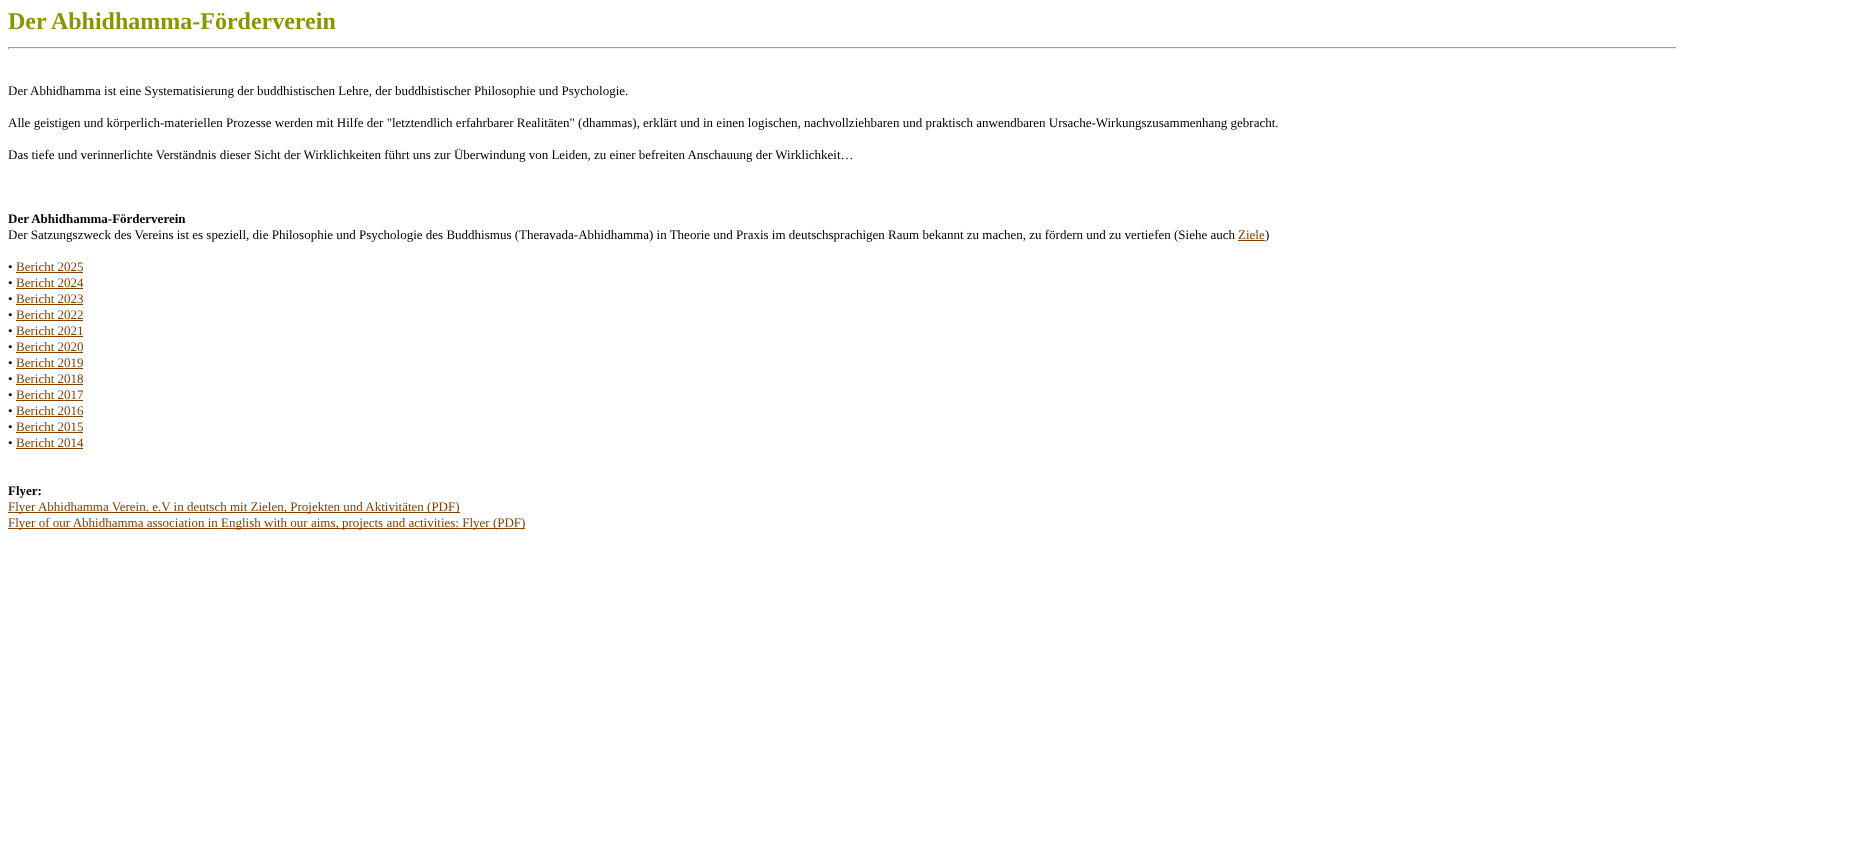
<svg xmlns="http://www.w3.org/2000/svg" width="1875" height="845" viewBox="0 0 1875 845">
  <rect width="100%" height="100%" fill="#fff"/>
  <path d="M8 47h1669v1H8z" fill="#9f9f9f"/>
  <path d="M1676 47h1v2H1676z" fill="#eee"/>
  <path d="M8 48h1669v1H8z" fill="#eee"/>
  <path d="M8 47h1v2H8z" fill="#9f9f9f"/>
  <path d="M1238 240h27v1H1238z" fill="#804000"/>
  <path d="M16 272h67v1H16z" fill="#804000"/>
  <path d="M16 288h67v1H16z" fill="#804000"/>
  <path d="M16 304h67v1H16z" fill="#804000"/>
  <path d="M16 320h67v1H16z" fill="#804000"/>
  <path d="M16 336h67v1H16z" fill="#804000"/>
  <path d="M16 352h67v1H16z" fill="#804000"/>
  <path d="M16 368h67v1H16z" fill="#804000"/>
  <path d="M16 384h67v1H16z" fill="#804000"/>
  <path d="M16 400h67v1H16z" fill="#804000"/>
  <path d="M16 416h67v1H16z" fill="#804000"/>
  <path d="M16 432h67v1H16z" fill="#804000"/>
  <path d="M16 448h67v1H16z" fill="#804000"/>
  <path d="M8 512h452v1H8z" fill="#804000"/>
  <path d="M8 528h517v1H8z" fill="#804000"/>
  <text x="8" y="29" font-family="Liberation Serif" font-size="24" font-weight="bold" fill="#889600">Der Abhidhamma-Förderverein</text>
  <g font-family="Liberation Serif" font-size="13" fill="#000">
    <text x="8" y="95">Der Abhidhamma ist eine Systematisierung der buddhistischen Lehre, der buddhistischer Philosophie und Psychologie.</text>
    <text x="8" y="127">Alle geistigen und körperlich-materiellen Prozesse werden mit Hilfe der "letztendlich erfahrbarer Realitäten" (dhammas), erklärt und in einen logischen, nachvollziehbaren und praktisch anwendbaren Ursache-Wirkungszusammenhang gebracht.</text>
    <text x="8" y="159">Das tiefe und verinnerlichte Verständnis dieser Sicht der Wirklichkeiten führt uns zur Überwindung von Leiden, zu einer befreiten Anschauung der Wirklichkeit…</text>
  </g>
  <text x="8" y="223" font-family="Liberation Serif" font-size="13" font-weight="bold" fill="#000">Der Abhidhamma-Förderverein</text>
  <text x="8" y="239" font-family="Liberation Serif" font-size="13" fill="#000">Der Satzungszweck des Vereins ist es speziell, die Philosophie und Psychologie des Buddhismus (Theravada-Abhidhamma) in Theorie und Praxis im deutschsprachigen Raum bekannt zu machen, zu fördern und zu vertiefen (Siehe auch</text>
  <text x="1238" y="239" font-family="Liberation Serif" font-size="13" fill="#804000">Ziele</text>
  <g font-family="Liberation Serif" font-size="13" fill="#000">
    <text x="1265" y="239">)</text>
    <text x="8" y="271">•</text>
  </g>
  <text x="16" y="271" font-family="Liberation Serif" font-size="13" fill="#804000">Bericht 2025</text>
  <text x="8" y="287" font-family="Liberation Serif" font-size="13" fill="#000">•</text>
  <text x="16" y="287" font-family="Liberation Serif" font-size="13" fill="#804000">Bericht 2024</text>
  <text x="8" y="303" font-family="Liberation Serif" font-size="13" fill="#000">•</text>
  <text x="16" y="303" font-family="Liberation Serif" font-size="13" fill="#804000">Bericht 2023</text>
  <text x="8" y="319" font-family="Liberation Serif" font-size="13" fill="#000">•</text>
  <text x="16" y="319" font-family="Liberation Serif" font-size="13" fill="#804000">Bericht 2022</text>
  <text x="8" y="335" font-family="Liberation Serif" font-size="13" fill="#000">•</text>
  <text x="16" y="335" font-family="Liberation Serif" font-size="13" fill="#804000">Bericht 2021</text>
  <text x="8" y="351" font-family="Liberation Serif" font-size="13" fill="#000">•</text>
  <text x="16" y="351" font-family="Liberation Serif" font-size="13" fill="#804000">Bericht 2020</text>
  <text x="8" y="367" font-family="Liberation Serif" font-size="13" fill="#000">•</text>
  <text x="16" y="367" font-family="Liberation Serif" font-size="13" fill="#804000">Bericht 2019</text>
  <text x="8" y="383" font-family="Liberation Serif" font-size="13" fill="#000">•</text>
  <text x="16" y="383" font-family="Liberation Serif" font-size="13" fill="#804000">Bericht 2018</text>
  <text x="8" y="399" font-family="Liberation Serif" font-size="13" fill="#000">•</text>
  <text x="16" y="399" font-family="Liberation Serif" font-size="13" fill="#804000">Bericht 2017</text>
  <text x="8" y="415" font-family="Liberation Serif" font-size="13" fill="#000">•</text>
  <text x="16" y="415" font-family="Liberation Serif" font-size="13" fill="#804000">Bericht 2016</text>
  <text x="8" y="431" font-family="Liberation Serif" font-size="13" fill="#000">•</text>
  <text x="16" y="431" font-family="Liberation Serif" font-size="13" fill="#804000">Bericht 2015</text>
  <text x="8" y="447" font-family="Liberation Serif" font-size="13" fill="#000">•</text>
  <text x="16" y="447" font-family="Liberation Serif" font-size="13" fill="#804000">Bericht 2014</text>
  <text x="8" y="495" font-family="Liberation Serif" font-size="13" font-weight="bold" fill="#000">Flyer:</text>
  <g font-family="Liberation Serif" font-size="13" fill="#804000">
    <text x="8" y="511">Flyer Abhidhamma Verein. e.V in deutsch mit Zielen, Projekten und Aktivitäten (PDF)</text>
    <text x="8" y="527">Flyer of our Abhidhamma association in English with our aims, projects and activities: Flyer (PDF)</text>
  </g>
</svg>
